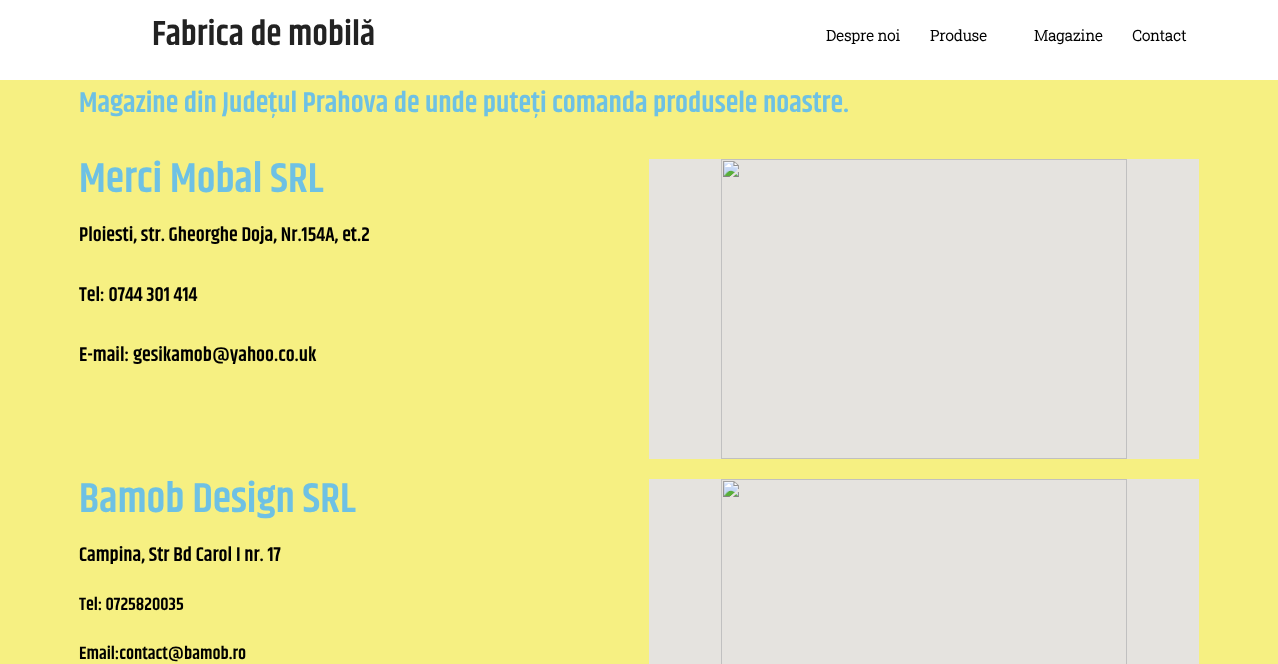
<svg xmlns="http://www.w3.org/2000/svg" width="1278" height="664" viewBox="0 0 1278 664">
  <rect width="100%" height="100%" fill="#f6f082"/>
  <path d="M0 0h1278v80H0z" fill="#fff"/>
  <image x="649" y="159" width="550" height="300" href="img/1.png"/>
  <image x="649" y="479" width="550" height="185" href="img/2.png"/>
  <text x="152" y="45" font-family="Khand" font-size="35" font-weight="600" fill="#222">Fabrica de mobilă</text>
  <g font-family="Roboto Slab" font-size="15" font-weight="bold" fill="#000">
    <text x="826" y="41">Despre noi</text>
    <text x="930" y="41">Produse</text>
    <text x="1034" y="41">Magazine</text>
    <text x="1132" y="41">Contact</text>
  </g>
  <text x="79" y="112" font-family="Khand" font-size="29" font-weight="600" fill="#6ec1e4">Magazine din Județul Prahova de unde puteți comanda produsele noastre.</text>
  <text x="79" y="192" font-family="Khand" font-size="42" font-weight="600" fill="#6ec1e4">Merci Mobal SRL</text>
  <g font-family="Khand" font-size="20" font-weight="600" fill="#000">
    <text x="79" y="241">Ploiesti, str. Gheorghe Doja, Nr.154A, et.2</text>
    <text x="79" y="301">Tel: 0744 301 414</text>
    <text x="79" y="361">E-mail: gesikamob@yahoo.co.uk</text>
  </g>
  <text x="79" y="512" font-family="Khand" font-size="42" font-weight="600" fill="#6ec1e4">Bamob Design SRL</text>
  <text x="79" y="561" font-family="Khand" font-size="20" font-weight="600" fill="#000">Campina, Str Bd Carol I nr. 17</text>
  <g font-family="Khand" font-size="18" font-weight="600" fill="#000">
    <text x="79" y="610">Tel: 0725820035</text>
    <text x="79" y="659">Email:contact@bamob.ro</text>
  </g>
</svg>
